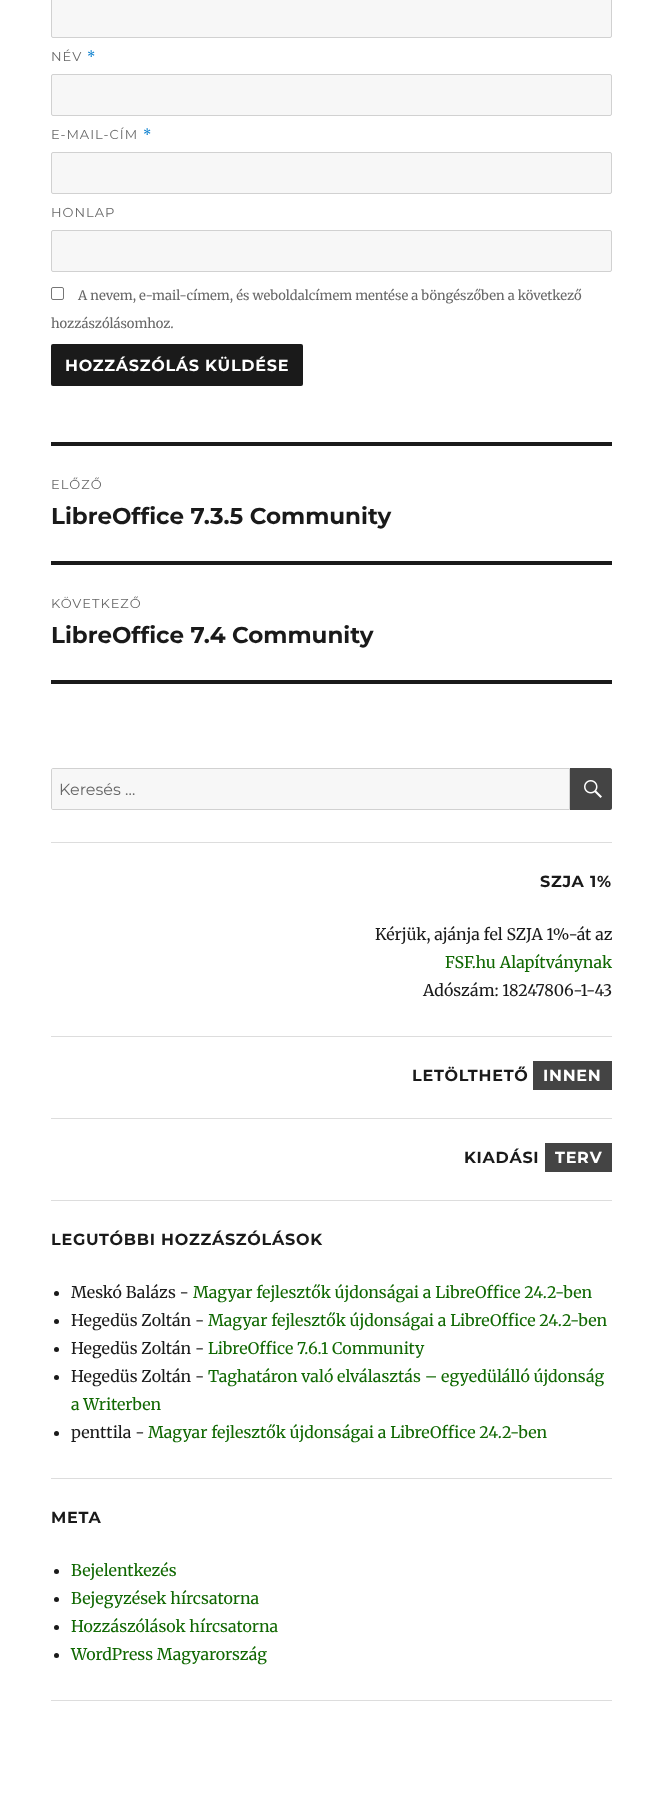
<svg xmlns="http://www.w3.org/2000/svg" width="663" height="1798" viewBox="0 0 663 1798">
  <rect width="100%" height="100%" fill="#fff"/>
  <rect x="51.5" y="-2.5" width="560" height="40" rx="1.5" fill="#f7f7f7" stroke="#d1d1d1"/>
  <rect x="51.5" y="74.5" width="560" height="41" rx="1.5" fill="#f7f7f7" stroke="#d1d1d1"/>
  <rect x="51.5" y="152.5" width="560" height="41" rx="1.5" fill="#f7f7f7" stroke="#d1d1d1"/>
  <rect x="51.5" y="230.5" width="560" height="41" rx="1.5" fill="#f7f7f7" stroke="#d1d1d1"/>
  <rect x="51.5" y="287.5" width="12" height="12" rx="1.5" fill="none" stroke="#767676"/>
  <rect x="51" y="344" width="252" height="42" rx="2" fill="#1a1a1a"/>
  <path d="M51 442h561v4H51z" fill="#1a1a1a"/>
  <path d="M51 680h561v4H51z" fill="#1a1a1a"/>
  <path d="M51 561h561v4H51z" fill="#1a1a1a"/>
  <path d="M53 768.5H569.5V809.5H53C52 809.5 51.5 809 51.5 808V770C51.5 769 52 768.5 53 768.5Z" fill="#f7f7f7" stroke="#d1d1d1"/>
  <path d="M570 768H610C611 768 612 769 612 770V808C612 809 611 810 610 810H570Z" fill="#444"/>
  <image x="584" y="780" width="18" height="18" href="img/1.png"/>
  <path d="M51 842h561v1H51z" fill="#ddd"/>
  <path d="M51 1036h561v1H51z" fill="#ddd"/>
  <path d="M533 1061h79v29H533z" fill="#444"/>
  <path d="M51 1118h561v1H51z" fill="#ddd"/>
  <path d="M545 1143h67v29H545z" fill="#444"/>
  <path d="M51 1200h561v1H51z" fill="#ddd"/>
  <circle cx="56.5" cy="1293.5" r="2.5" fill="#1a1a1a"/>
  <circle cx="56.5" cy="1321.5" r="2.5" fill="#1a1a1a"/>
  <circle cx="56.5" cy="1349.5" r="2.5" fill="#1a1a1a"/>
  <circle cx="56.5" cy="1377.5" r="2.5" fill="#1a1a1a"/>
  <circle cx="56.5" cy="1433.5" r="2.5" fill="#1a1a1a"/>
  <path d="M51 1478h561v1H51z" fill="#ddd"/>
  <circle cx="56.5" cy="1571.5" r="2.5" fill="#1a1a1a"/>
  <circle cx="56.5" cy="1599.5" r="2.5" fill="#1a1a1a"/>
  <circle cx="56.5" cy="1627.5" r="2.5" fill="#1a1a1a"/>
  <circle cx="56.5" cy="1655.5" r="2.5" fill="#1a1a1a"/>
  <path d="M51 1700h561v1H51z" fill="#ddd"/>
  <text x="51" y="61" font-family="Montserrat" font-size="13" letter-spacing="1" fill="#686868">NÉV</text>
  <text x="87" y="61" font-family="Merriweather" font-size="13" letter-spacing="1" fill="#007acc">*</text>
  <text x="51" y="139" font-family="Montserrat" font-size="13" letter-spacing="1" fill="#686868">E-MAIL-CÍM</text>
  <text x="143" y="139" font-family="Merriweather" font-size="13" letter-spacing="1" fill="#007acc">*</text>
  <text x="51" y="217" font-family="Montserrat" font-size="13" letter-spacing="1" fill="#686868">HONLAP</text>
  <g font-family="Merriweather" font-size="13" fill="#686868">
    <text x="78" y="300">A nevem, e-mail-címem, és weboldalcímem mentése a böngészőben a következő</text>
    <text x="51" y="328">hozzászólásomhoz.</text>
  </g>
  <text x="65" y="371" font-family="Montserrat" font-size="16" font-weight="bold" letter-spacing="0.75" fill="#fff">HOZZÁSZÓLÁS KÜLDÉSE</text>
  <text x="51" y="489" font-family="Montserrat" font-size="13" letter-spacing="1" fill="#686868">ELŐZŐ</text>
  <text x="51" y="524" font-family="Montserrat" font-size="23" font-weight="bold" fill="#1a1a1a">LibreOffice 7.3.5 Community</text>
  <text x="51" y="608" font-family="Montserrat" font-size="13" letter-spacing="1" fill="#686868">KÖVETKEZŐ</text>
  <text x="51" y="643" font-family="Montserrat" font-size="23" font-weight="bold" fill="#1a1a1a">LibreOffice 7.4 Community</text>
  <text x="59" y="795" font-family="Montserrat" font-size="16" fill="#686868">Keresés …</text>
  <text x="540" y="887" font-family="Montserrat" font-size="16" font-weight="bold" letter-spacing="0.75" fill="#1a1a1a">SZJA 1%</text>
  <text x="375" y="940" font-family="Merriweather" font-size="16" fill="#1a1a1a">Kérjük, ajánja fel SZJA 1%-át az</text>
  <text x="445" y="968" font-family="Merriweather" font-size="16" fill="#106802">FSF.hu Alapítványnak</text>
  <text x="423" y="996" font-family="Merriweather" font-size="16" fill="#1a1a1a">Adószám: 18247806-1-43</text>
  <text x="412" y="1081" font-family="Montserrat" font-size="16" font-weight="bold" letter-spacing="0.75" fill="#1a1a1a">LETÖLTHETŐ</text>
  <text x="543" y="1081" font-family="Montserrat" font-size="16" font-weight="bold" letter-spacing="0.75" fill="#fff">INNEN</text>
  <text x="464" y="1163" font-family="Montserrat" font-size="16" font-weight="bold" letter-spacing="0.75" fill="#1a1a1a">KIADÁSI</text>
  <text x="555" y="1163" font-family="Montserrat" font-size="16" font-weight="bold" letter-spacing="0.75" fill="#fff">TERV</text>
  <text x="51" y="1245" font-family="Montserrat" font-size="16" font-weight="bold" letter-spacing="0.75" fill="#1a1a1a">LEGUTÓBBI HOZZÁSZÓLÁSOK</text>
  <text x="71" y="1298" font-family="Merriweather" font-size="16" fill="#1a1a1a">Meskó Balázs -</text>
  <text x="193" y="1298" font-family="Merriweather" font-size="16" fill="#106802">Magyar fejlesztők újdonságai a LibreOffice 24.2-ben</text>
  <text x="71" y="1326" font-family="Merriweather" font-size="16" fill="#1a1a1a">Hegedüs Zoltán -</text>
  <text x="208" y="1326" font-family="Merriweather" font-size="16" fill="#106802">Magyar fejlesztők újdonságai a LibreOffice 24.2-ben</text>
  <text x="71" y="1354" font-family="Merriweather" font-size="16" fill="#1a1a1a">Hegedüs Zoltán -</text>
  <text x="208" y="1354" font-family="Merriweather" font-size="16" fill="#106802">LibreOffice 7.6.1 Community</text>
  <text x="71" y="1382" font-family="Merriweather" font-size="16" fill="#1a1a1a">Hegedüs Zoltán -</text>
  <g font-family="Merriweather" font-size="16" fill="#106802">
    <text x="208" y="1382">Taghatáron való elválasztás – egyedülálló újdonság</text>
    <text x="71" y="1410">a Writerben</text>
  </g>
  <text x="71" y="1438" font-family="Merriweather" font-size="16" fill="#1a1a1a">penttila -</text>
  <text x="148" y="1438" font-family="Merriweather" font-size="16" fill="#106802">Magyar fejlesztők újdonságai a LibreOffice 24.2-ben</text>
  <text x="51" y="1523" font-family="Montserrat" font-size="16" font-weight="bold" letter-spacing="0.75" fill="#1a1a1a">META</text>
  <g font-family="Merriweather" font-size="16" fill="#106802">
    <text x="71" y="1576">Bejelentkezés</text>
    <text x="71" y="1604">Bejegyzések hírcsatorna</text>
    <text x="71" y="1632">Hozzászólások hírcsatorna</text>
    <text x="71" y="1660">WordPress Magyarország</text>
  </g>
</svg>
